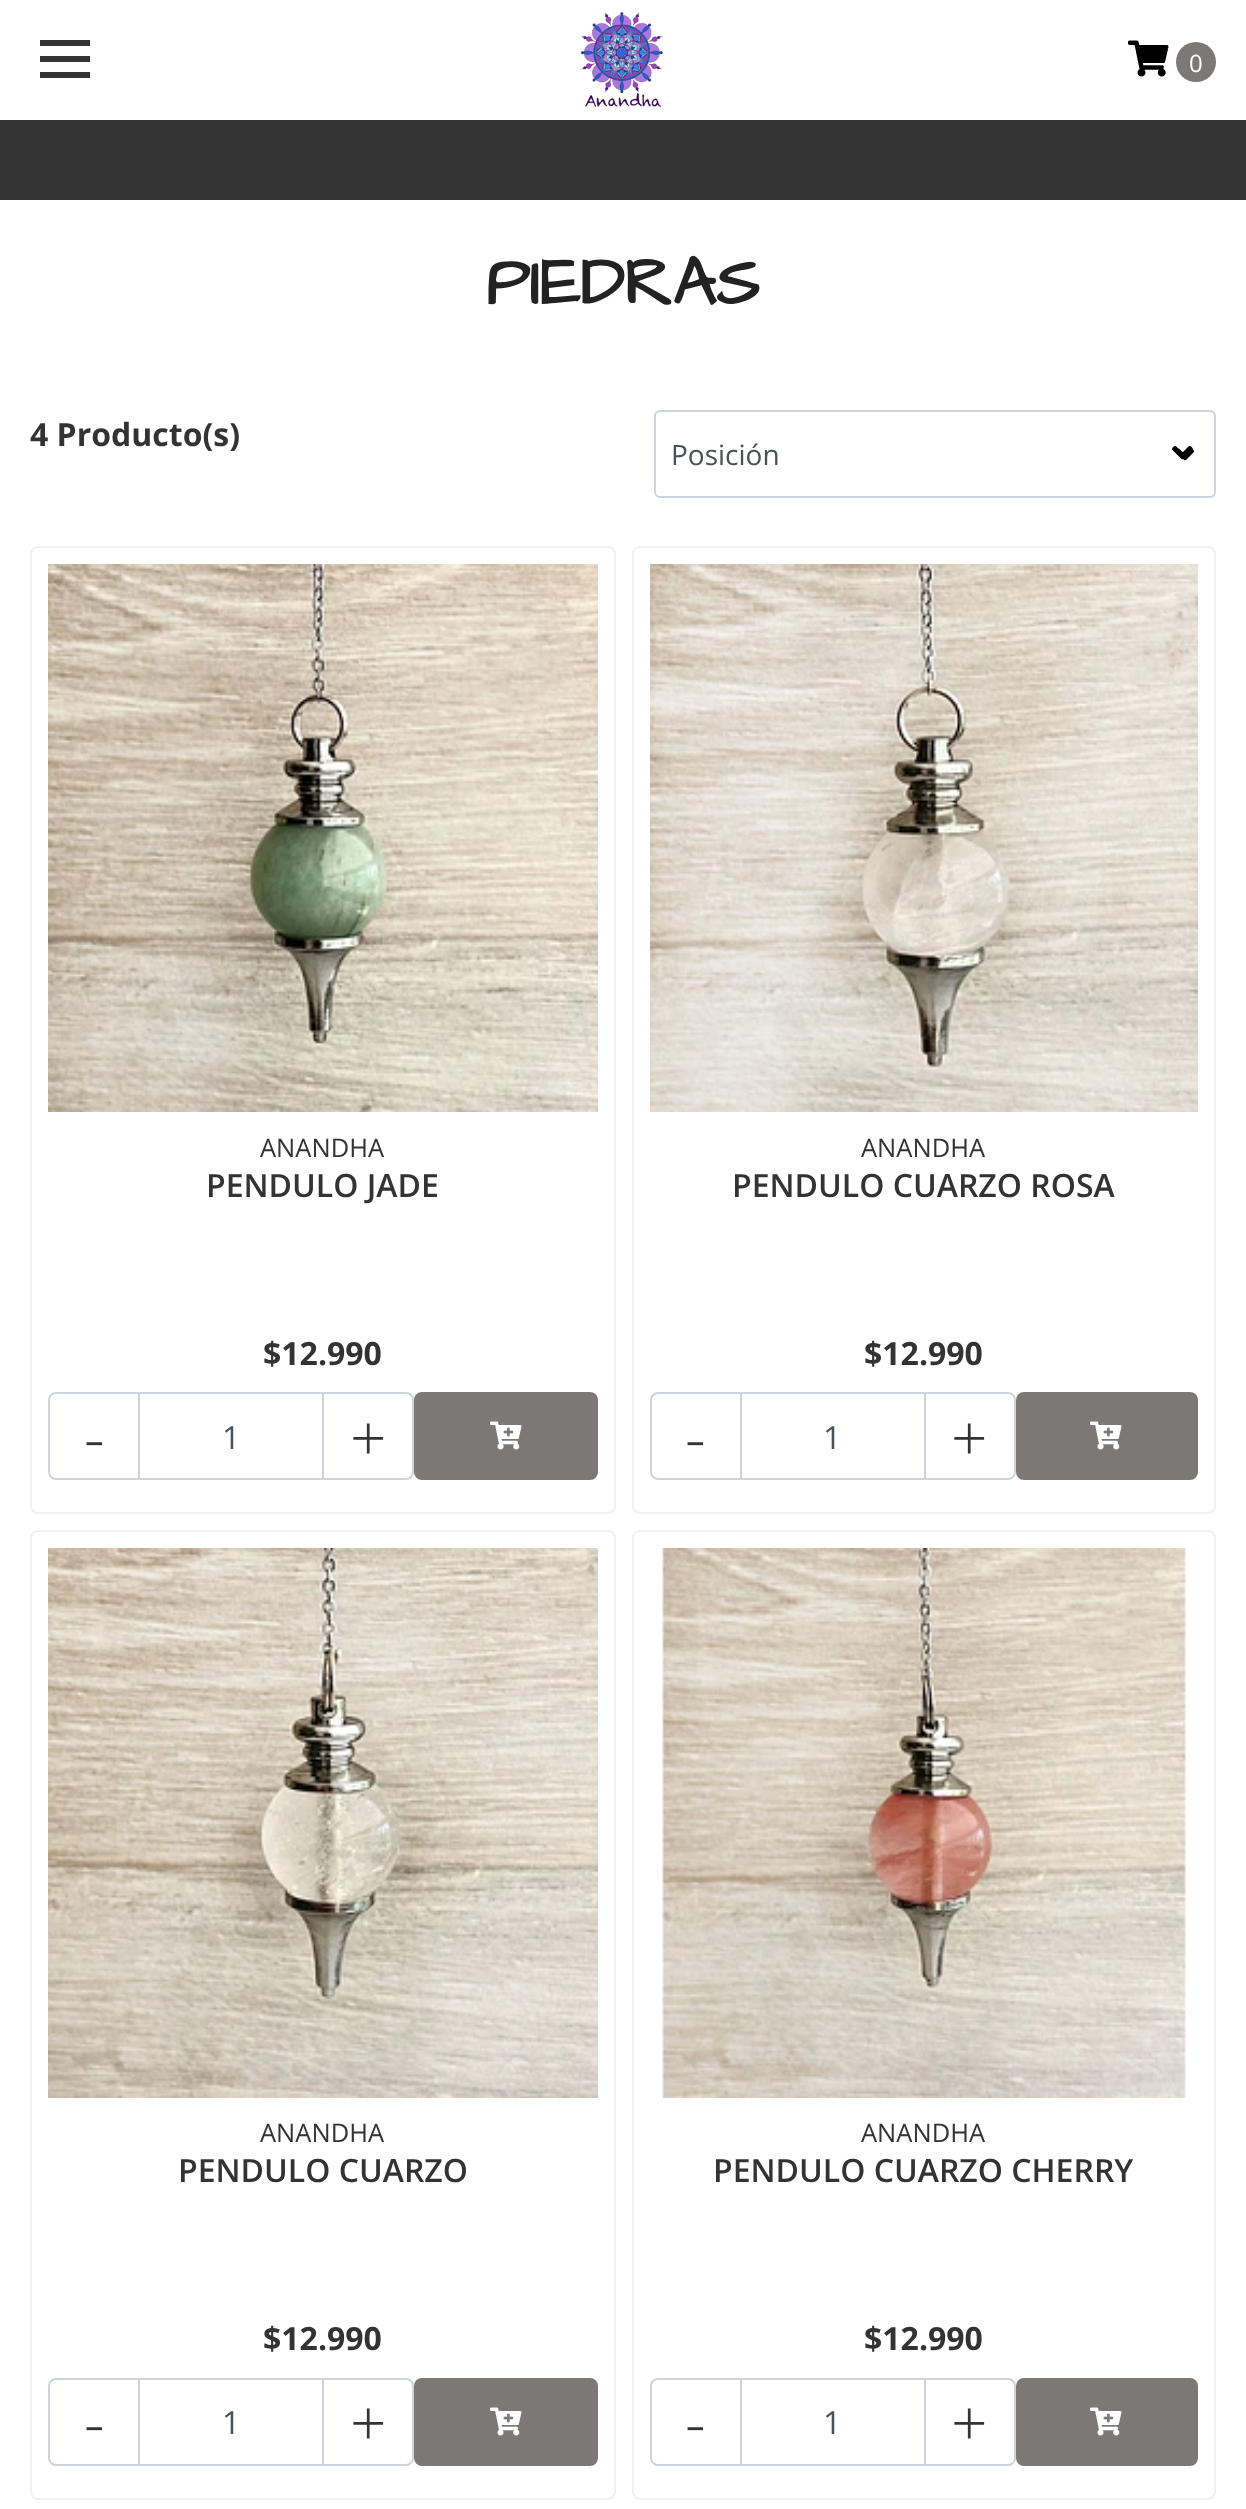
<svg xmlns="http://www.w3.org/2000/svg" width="1246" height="2509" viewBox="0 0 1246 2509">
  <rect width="100%" height="100%" fill="#fff"/>
  <path d="M40 40h50v6H40z" fill="#333"/>
  <path d="M40 56h50v6H40z" fill="#333"/>
  <path d="M40 72h50v6H40z" fill="#333"/>
  <image x="580" y="12" width="90" height="95" href="img/1.png"/>
  <image x="1128" y="40" width="41" height="37" href="img/2.png"/>
  <circle cx="1196" cy="62" r="20" fill="#7c7878"/>
  <path d="M0 120h1246v80H0z" fill="#333"/>
  <image x="1172" y="445" width="21" height="15" href="img/3.png"/>
  <image x="1178" y="448" width="16" height="13" href="img/4.png"/>
  <rect x="655" y="411" width="560" height="86" rx="5" fill="none" stroke="#ced4da" stroke-width="2"/>
  <rect x="31" y="547" width="584" height="966" rx="7" fill="none" stroke="#f1f1f1" stroke-width="2"/>
  <image x="48" y="564" width="550" height="548" href="img/5.png"/>
  <rect x="49" y="1393" width="364" height="86" rx="7" fill="none" stroke="#ced4da" stroke-width="2"/>
  <path d="M138 1394h2v84H138z" fill="#ced4da"/>
  <path d="M322 1394h2v84H322z" fill="#ced4da"/>
  <rect x="414" y="1392" width="184" height="88" rx="8" fill="#7c7878"/>
  <image x="490" y="1421" width="32" height="29" href="img/6.png"/>
  <rect x="633" y="547" width="582" height="966" rx="7" fill="none" stroke="#f1f1f1" stroke-width="2"/>
  <image x="650" y="564" width="548" height="548" href="img/7.png"/>
  <rect x="651" y="1393" width="364" height="86" rx="7" fill="none" stroke="#ced4da" stroke-width="2"/>
  <path d="M740 1394h2v84H740z" fill="#ced4da"/>
  <path d="M924 1394h2v84H924z" fill="#ced4da"/>
  <rect x="1016" y="1392" width="182" height="88" rx="8" fill="#7c7878"/>
  <image x="1090" y="1421" width="32" height="29" href="img/6.png"/>
  <rect x="31" y="1531" width="584" height="968" rx="7" fill="none" stroke="#f1f1f1" stroke-width="2"/>
  <image x="48" y="1548" width="550" height="550" href="img/8.png"/>
  <rect x="49" y="2379" width="364" height="86" rx="7" fill="none" stroke="#ced4da" stroke-width="2"/>
  <path d="M138 2380h2v84H138z" fill="#ced4da"/>
  <path d="M322 2380h2v84H322z" fill="#ced4da"/>
  <rect x="414" y="2378" width="184" height="88" rx="8" fill="#7c7878"/>
  <image x="490" y="2407" width="32" height="29" href="img/6.png"/>
  <rect x="633" y="1531" width="582" height="968" rx="7" fill="none" stroke="#f1f1f1" stroke-width="2"/>
  <image x="662" y="1548" width="524" height="550" href="img/9.png"/>
  <rect x="651" y="2379" width="364" height="86" rx="7" fill="none" stroke="#ced4da" stroke-width="2"/>
  <path d="M740 2380h2v84H740z" fill="#ced4da"/>
  <path d="M924 2380h2v84H924z" fill="#ced4da"/>
  <rect x="1016" y="2378" width="182" height="88" rx="8" fill="#7c7878"/>
  <image x="1090" y="2407" width="32" height="29" href="img/6.png"/>
  <text x="1189" y="72" font-family="Open Sans" font-size="24" fill="#fff">0</text>
  <text x="486" y="304" font-family="Architects Daughter" font-size="68" font-weight="bold" fill="#222">PIEDRAS</text>
  <text x="30" y="446" font-family="Open Sans" font-size="32" font-weight="bold" fill="#333">4 Producto(s)</text>
  <text x="671" y="465" font-family="Open Sans" font-size="28" fill="#495057">Posición</text>
  <text x="260" y="1157" font-family="Open Sans" font-size="25.5" fill="#333">ANANDHA</text>
  <text x="206" y="1197" font-family="Open Sans" font-size="32" font-weight="600" fill="#333">PENDULO JADE</text>
  <text x="263" y="1365" font-family="Open Sans" font-size="32" font-weight="bold" fill="#333">$12.990</text>
  <g font-family="Open Sans" font-size="64" font-weight="300" fill="#333">
    <text x="84" y="1461">-</text>
    <text x="350" y="1461">+</text>
  </g>
  <text x="222" y="1449" font-family="Open Sans" font-size="32" fill="#495057">1</text>
  <text x="861" y="1157" font-family="Open Sans" font-size="25.5" fill="#333">ANANDHA</text>
  <text x="732" y="1197" font-family="Open Sans" font-size="32" font-weight="600" fill="#333">PENDULO CUARZO ROSA</text>
  <text x="864" y="1365" font-family="Open Sans" font-size="32" font-weight="bold" fill="#333">$12.990</text>
  <g font-family="Open Sans" font-size="64" font-weight="300" fill="#333">
    <text x="685" y="1461">-</text>
    <text x="951" y="1461">+</text>
  </g>
  <text x="823" y="1449" font-family="Open Sans" font-size="32" fill="#495057">1</text>
  <text x="260" y="2142" font-family="Open Sans" font-size="25.5" fill="#333">ANANDHA</text>
  <text x="178" y="2182" font-family="Open Sans" font-size="32" font-weight="600" fill="#333">PENDULO CUARZO</text>
  <text x="263" y="2350" font-family="Open Sans" font-size="32" font-weight="bold" fill="#333">$12.990</text>
  <g font-family="Open Sans" font-size="64" font-weight="300" fill="#333">
    <text x="84" y="2446">-</text>
    <text x="350" y="2446">+</text>
  </g>
  <text x="222" y="2434" font-family="Open Sans" font-size="32" fill="#495057">1</text>
  <text x="861" y="2142" font-family="Open Sans" font-size="25.5" fill="#333">ANANDHA</text>
  <text x="713" y="2182" font-family="Open Sans" font-size="32" font-weight="600" fill="#333">PENDULO CUARZO CHERRY</text>
  <text x="864" y="2350" font-family="Open Sans" font-size="32" font-weight="bold" fill="#333">$12.990</text>
  <g font-family="Open Sans" font-size="64" font-weight="300" fill="#333">
    <text x="685" y="2446">-</text>
    <text x="951" y="2446">+</text>
  </g>
  <text x="823" y="2434" font-family="Open Sans" font-size="32" fill="#495057">1</text>
</svg>
